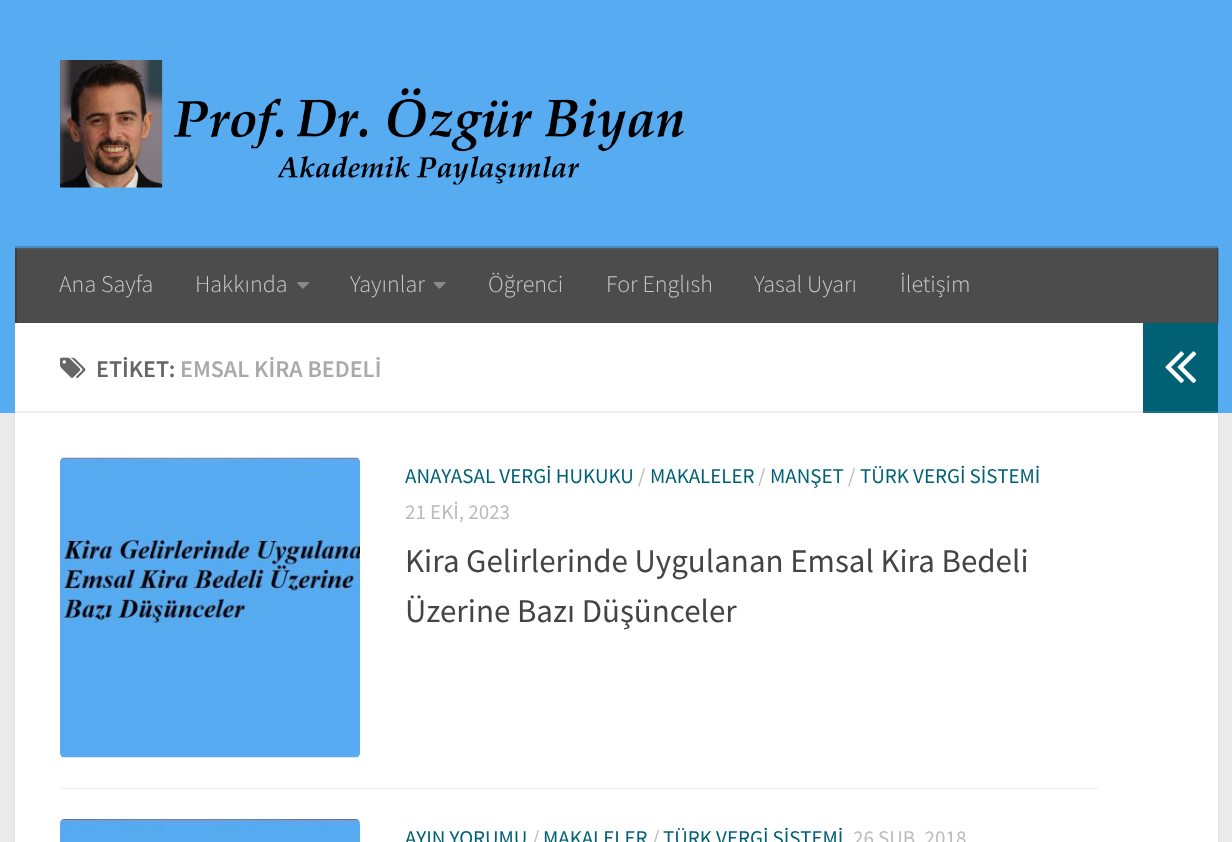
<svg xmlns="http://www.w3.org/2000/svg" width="1232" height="842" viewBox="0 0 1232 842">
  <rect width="100%" height="100%" fill="#eaeaea"/>
  <path d="M15 324h1203v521H15z" fill="#0000001a" filter="blur(1px)"/>
  <path d="M0 0h1232v413H0z" fill="#56abf1"/>
  <image x="60" y="60" width="624" height="128" href="img/1.png"/>
  <path d="M15 246h1203v2H15z" fill="#4589c1"/>
  <path d="M17 248h1201v75H17z" fill="#4c4c4c"/>
  <path d="M1217 248h2v75H1217z" fill="#00000033"/>
  <path d="M15 248h2v75H15z" fill="#3d3d3d"/>
  <path d="M15 248h1203v2H15z" fill="#ffffff0d"/>
  <image x="297" y="282" width="12" height="7" href="img/2.png"/>
  <image x="433" y="282" width="13" height="7" href="img/3.png"/>
  <path d="M15 323h1203v519H15z" fill="#fff"/>
  <path d="M15 411h1128v2H15z" fill="#eee"/>
  <image x="60" y="357" width="26" height="21" href="img/4.png"/>
  <path d="M60 788h1038v1H60z" fill="#eee"/>
  <image x="60" y="457" width="300" height="301" href="img/5.png"/>
  <image x="60" y="819" width="300" height="23" href="img/6.png"/>
  <path d="M1143 323h75v88H1143z" fill="#006175"/>
  <path d="M1143 411h75v2H1143z" fill="#1a7183"/>
  <image x="1165" y="351" width="32" height="32" href="img/7.png"/>
  <g font-family="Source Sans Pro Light" font-size="24" font-weight="300" fill="#c9c9c9">
    <text x="59" y="292">Ana Sayfa</text>
    <text x="195" y="292">Hakkında</text>
    <text x="350" y="292">Yayınlar</text>
    <text x="488" y="292">Öğrenci</text>
    <text x="606" y="292">For Englısh</text>
    <text x="754" y="292">Yasal Uyarı</text>
    <text x="900" y="292">İletişim</text>
  </g>
  <text x="96" y="377" font-family="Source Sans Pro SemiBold" font-size="24" font-weight="600" fill="#666">ETİKET:</text>
  <text x="180" y="377" font-family="Source Sans Pro SemiBold" font-size="24" font-weight="600" fill="#aaa">EMSAL KİRA BEDELİ</text>
  <text x="405" y="483" font-family="Source Sans Pro" font-size="21" fill="#006175">ANAYASAL VERGİ HUKUKU</text>
  <text x="638" y="483" font-family="Source Sans Pro" font-size="21" fill="#bbb">/</text>
  <text x="650" y="483" font-family="Source Sans Pro" font-size="21" fill="#006175">MAKALELER</text>
  <text x="758" y="483" font-family="Source Sans Pro" font-size="21" fill="#bbb">/</text>
  <text x="770" y="483" font-family="Source Sans Pro" font-size="21" fill="#006175">MANŞET</text>
  <text x="848" y="483" font-family="Source Sans Pro" font-size="21" fill="#bbb">/</text>
  <text x="860" y="483" font-family="Source Sans Pro" font-size="21" fill="#006175">TÜRK VERGİ SİSTEMİ</text>
  <text x="405" y="519" font-family="Source Sans Pro" font-size="21" fill="#bbb">21 EKİ, 2023</text>
  <g font-family="Source Sans Pro" font-size="33" fill="#444">
    <text x="405" y="572">Kira Gelirlerinde Uygulanan Emsal Kira Bedeli</text>
    <text x="405" y="622">Üzerine Bazı Düşünceler</text>
  </g>
  <text x="405" y="845" font-family="Source Sans Pro" font-size="21" fill="#006175">AYIN YORUMU</text>
  <text x="532" y="845" font-family="Source Sans Pro" font-size="21" fill="#bbb">/</text>
  <text x="543" y="845" font-family="Source Sans Pro" font-size="21" fill="#006175">MAKALELER</text>
  <text x="652" y="845" font-family="Source Sans Pro" font-size="21" fill="#bbb">/</text>
  <text x="663" y="845" font-family="Source Sans Pro" font-size="21" fill="#006175">TÜRK VERGİ SİSTEMİ</text>
  <text x="853" y="845" font-family="Source Sans Pro" font-size="21" fill="#bbb">26 ŞUB, 2018</text>
</svg>
